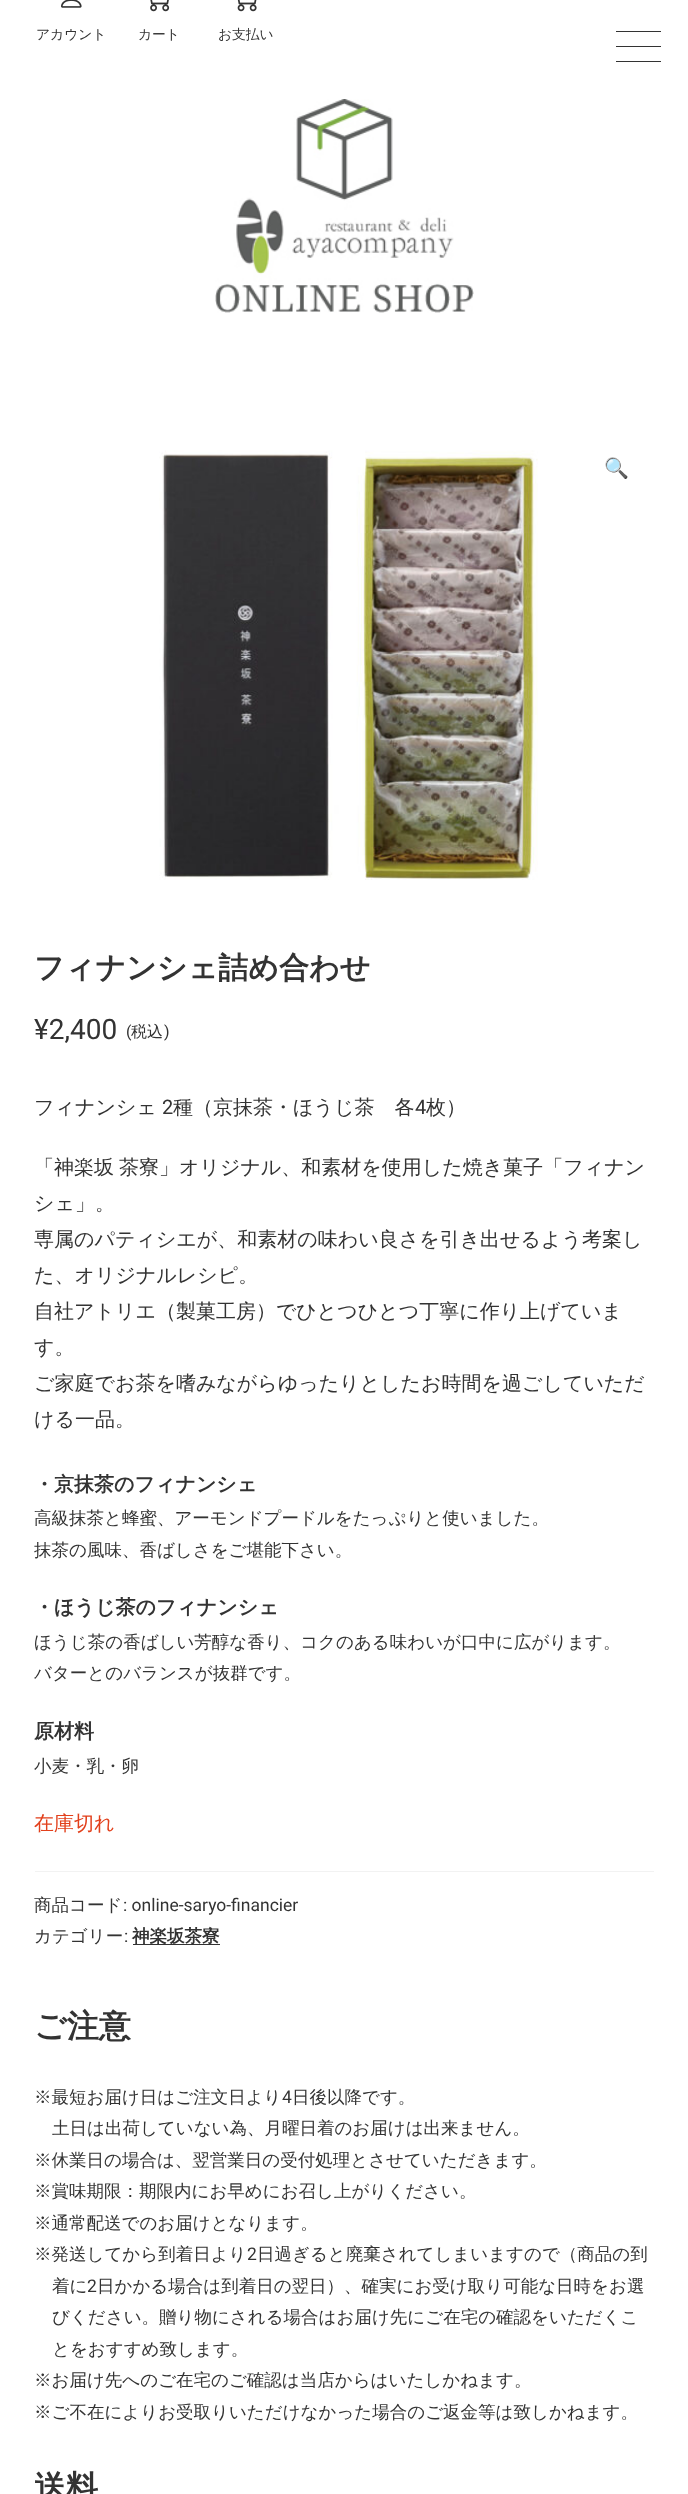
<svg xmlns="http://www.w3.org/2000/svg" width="688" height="2494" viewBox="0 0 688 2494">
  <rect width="100%" height="100%" fill="#fff"/>
  <image x="61" y="0" width="21" height="8" href="img/1.png"/>
  <image x="150" y="0" width="20" height="12" href="img/2.png"/>
  <image x="237" y="0" width="20" height="12" href="img/3.png"/>
  <path d="M616 31h45v1H616z" fill="#333"/>
  <path d="M616 46h45v1H616z" fill="#333"/>
  <path d="M616 61h45v1H616z" fill="#333"/>
  <image x="215" y="99" width="259" height="214" href="img/4.png"/>
  <image x="159" y="450" width="379" height="430" href="img/5.png"/>
  <path d="M35 1871h619v1H35z" fill="#f2f2f2"/>
  <path d="M133 1944h87v1H133z" fill="#333"/>
  <g font-family="WenQuanYi Zen Hei" font-size="13.75" font-weight="500" fill="#333">
    <text x="36" y="39">アカウント</text>
    <text x="138" y="39">カート</text>
    <text x="218" y="39">お支払い</text>
  </g>
  <text x="604" y="475" font-family="Noto Color Emoji" font-size="20" fill="#333">🔍</text>
  <text x="34" y="978" font-family="WenQuanYi Zen Hei" font-size="30" font-weight="bold" fill="#333">フィナンシェ詰め合わせ</text>
  <text x="34" y="1039" font-family="Roboto" font-size="28" fill="#333">¥2,400</text>
  <text x="126" y="1037" font-family="Roboto" font-size="16" fill="#333">(</text>
  <text x="131" y="1037" font-family="WenQuanYi Zen Hei" font-size="16" font-weight="500" fill="#333">税込</text>
  <text x="164" y="1037" font-family="Roboto" font-size="16" fill="#333">)</text>
  <text x="34" y="1114" font-family="WenQuanYi Zen Hei" font-size="20" font-weight="500" fill="#333">フィナンシェ</text>
  <text x="162" y="1114" font-family="Roboto" font-size="20" fill="#333">2</text>
  <text x="173" y="1114" font-family="WenQuanYi Zen Hei" font-size="20" font-weight="500" fill="#333">種（京抹茶・ほうじ茶　各</text>
  <text x="415" y="1114" font-family="Roboto" font-size="20" fill="#333">4</text>
  <g font-family="WenQuanYi Zen Hei" font-size="20" font-weight="500" fill="#333">
    <text x="426" y="1114">枚）</text>
    <text x="34" y="1174" word-spacing="-1">「神楽坂 茶寮」オリジナル、和素材を使用した焼き菓子「フィナン</text>
    <text x="34" y="1210">シェ」。</text>
    <text x="34" y="1246">専属のパティシエが、和素材の味わい良さを引き出せるよう考案し</text>
    <text x="34" y="1282">た、オリジナルレシピ。</text>
    <text x="34" y="1318">自社アトリエ（製菓工房）でひとつひとつ丁寧に作り上げていま</text>
    <text x="34" y="1354">す。</text>
    <text x="34" y="1390">ご家庭でお茶を嗜みながらゆったりとしたお時間を過ごしていただ</text>
    <text x="34" y="1426">ける一品。</text>
  </g>
  <text x="34" y="1491" font-family="WenQuanYi Zen Hei" font-size="20" font-weight="bold" fill="#333">・京抹茶のフィナンシェ</text>
  <g font-family="WenQuanYi Zen Hei" font-size="17.5" font-weight="500" fill="#333">
    <text x="34" y="1524">高級抹茶と蜂蜜、アーモンドプードルをたっぷりと使いました。</text>
    <text x="34" y="1556">抹茶の風味、香ばしさをご堪能下さい。</text>
  </g>
  <text x="34" y="1614" font-family="WenQuanYi Zen Hei" font-size="20" font-weight="bold" fill="#333">・ほうじ茶のフィナンシェ</text>
  <g font-family="WenQuanYi Zen Hei" font-size="17.5" font-weight="500" fill="#333">
    <text x="34" y="1648">ほうじ茶の香ばしい芳醇な香り、コクのある味わいが口中に広がります。</text>
    <text x="34" y="1679">バターとのバランスが抜群です。</text>
  </g>
  <text x="34" y="1738" font-family="WenQuanYi Zen Hei" font-size="20" font-weight="bold" fill="#333">原材料</text>
  <text x="34" y="1772" font-family="WenQuanYi Zen Hei" font-size="17.5" font-weight="500" fill="#333">小麦・乳・卵</text>
  <text x="34" y="1830" font-family="WenQuanYi Zen Hei" font-size="20" font-weight="500" fill="#e2401c">在庫切れ</text>
  <text x="34" y="1911" font-family="WenQuanYi Zen Hei" font-size="17.5" font-weight="500" fill="#333">商品コード</text>
  <text x="123" y="1911" font-family="Roboto" font-size="17.5" fill="#333">: online-saryo-financier</text>
  <text x="34" y="1942" font-family="WenQuanYi Zen Hei" font-size="17.5" font-weight="500" fill="#333">カテゴリー</text>
  <text x="124" y="1942" font-family="Roboto" font-size="17.5" fill="#333">:</text>
  <text x="132" y="1942" font-family="WenQuanYi Zen Hei" font-size="17.5" font-weight="bold" fill="#333">神楽坂茶寮</text>
  <text x="34" y="2037" font-family="WenQuanYi Zen Hei" font-size="32" font-weight="bold" fill="#333">ご注意</text>
  <text x="34" y="2103" font-family="WenQuanYi Zen Hei" font-size="17.5" font-weight="500" fill="#333">※最短お届け日はご注文日より</text>
  <text x="282" y="2103" font-family="Roboto" font-size="17.5" fill="#333">4</text>
  <g font-family="WenQuanYi Zen Hei" font-size="17.5" font-weight="500" fill="#333">
    <text x="292" y="2103">日後以降です。</text>
    <text x="52" y="2134">土日は出荷していない為、月曜日着のお届けは出来ません。</text>
    <text x="34" y="2166">※休業日の場合は、翌営業日の受付処理とさせていただきます。</text>
    <text x="34" y="2197">※賞味期限：期限内にお早めにお召し上がりください。</text>
    <text x="34" y="2229">※通常配送でのお届けとなります。</text>
    <text x="34" y="2260">※発送してから到着日より</text>
  </g>
  <text x="247" y="2260" font-family="Roboto" font-size="17.5" fill="#333">2</text>
  <g font-family="WenQuanYi Zen Hei" font-size="17.5" font-weight="500" fill="#333">
    <text x="257" y="2260">日過ぎると廃棄されてしまいますので（商品の到</text>
    <text x="52" y="2292">着に</text>
  </g>
  <text x="87" y="2292" font-family="Roboto" font-size="17.5" fill="#333">2</text>
  <g font-family="WenQuanYi Zen Hei" font-size="17.5" font-weight="500" fill="#333">
    <text x="97" y="2292">日かかる場合は到着日の翌日）、確実にお受け取り可能な日時をお選</text>
    <text x="52" y="2323">びください。贈り物にされる場合はお届け先にご在宅の確認をいただくこ</text>
    <text x="52" y="2355">とをおすすめ致します。</text>
    <text x="34" y="2386">※お届け先へのご在宅のご確認は当店からはいたしかねます。</text>
    <text x="34" y="2418">※ご不在によりお受取りいただけなかった場合のご返金等は致しかねます。</text>
  </g>
  <text x="34" y="2498" font-family="WenQuanYi Zen Hei" font-size="32" font-weight="bold" fill="#333">送料</text>
</svg>
